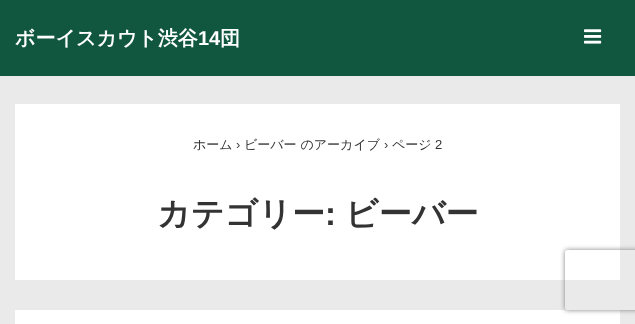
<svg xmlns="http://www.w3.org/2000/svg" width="635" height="324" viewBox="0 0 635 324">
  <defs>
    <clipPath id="clip1"><path d="M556 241H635V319H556ZM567 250H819C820 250 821 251 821 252V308C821 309 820 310 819 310H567C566 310 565 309 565 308V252C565 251 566 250 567 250Z" clip-rule="evenodd"/></clipPath>
  </defs>
  <rect width="100%" height="100%" fill="#eaeaea"/>
  <path d="M0 0h635v76H0z" fill="#115740"/>
  <image x="584" y="29" width="18" height="15" href="img/1.png"/>
  <path d="M15 104h605v176H15z" fill="#fff"/>
  <path d="M15 310h605v14H15z" fill="#fff"/>
  <g clip-path="url(#clip1)">
    <rect x="565" y="250" width="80" height="60" rx="2" fill="#808080" filter="blur(2.5px)"/>
  </g>
  <text x="15" y="45" font-family="WenQuanYi Zen Hei" font-size="20" font-weight="bold" fill="#fff">ボーイスカウト渋谷</text>
  <text x="198" y="45" font-family="Liberation Sans" font-size="20" font-weight="bold" fill="#fff">14</text>
  <text x="220" y="45" font-family="WenQuanYi Zen Hei" font-size="20" font-weight="bold" fill="#fff">団</text>
  <text x="193" y="149" font-family="WenQuanYi Zen Hei" font-size="13" font-weight="500" fill="#333">ホーム</text>
  <text x="236" y="149" font-family="Liberation Sans" font-size="13" fill="#333">›</text>
  <text x="244" y="149" font-family="WenQuanYi Zen Hei" font-size="13" font-weight="500" fill="#333">ビーバー のアーカイブ</text>
  <text x="384" y="149" font-family="Liberation Sans" font-size="13" fill="#333">›</text>
  <text x="392" y="149" font-family="WenQuanYi Zen Hei" font-size="13" font-weight="500" fill="#333">ページ</text>
  <text x="435" y="149" font-family="Liberation Sans" font-size="13" fill="#333">2</text>
  <text x="157" y="225" font-family="WenQuanYi Zen Hei" font-size="33" font-weight="bold" fill="#333">カテゴリー</text>
  <text x="325" y="225" font-family="Liberation Sans" font-size="33" font-weight="bold" fill="#333">:</text>
  <text x="345" y="225" font-family="WenQuanYi Zen Hei" font-size="33" font-weight="bold" fill="#333">ビーバー</text>
</svg>
